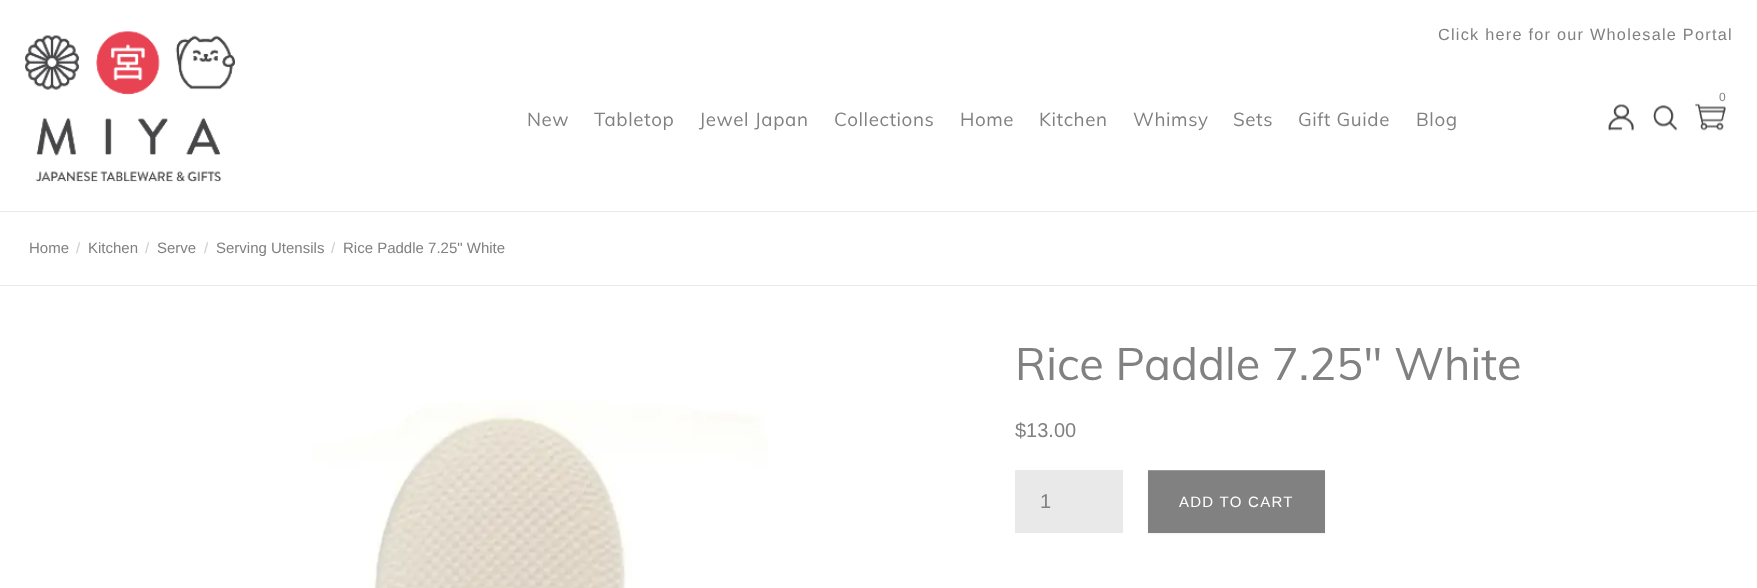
<svg xmlns="http://www.w3.org/2000/svg" width="1757" height="588" viewBox="0 0 1757 588">
  <rect width="100%" height="100%" fill="#fff"/>
  <path d="M0 211h1757v1H0z" fill="#e9e9e9"/>
  <image x="25" y="31" width="210" height="151" href="img/1.png"/>
  <image x="1695" y="103" width="31" height="28" href="img/2.png"/>
  <image x="1608" y="104" width="26" height="27" href="img/3.png"/>
  <image x="1653" y="105" width="25" height="26" href="img/4.png"/>
  <path d="M0 285h1757v1H0z" fill="#e9e9e9"/>
  <image x="313" y="399" width="455" height="189" href="img/5.png"/>
  <path d="M1015 470h108v63H1015z" fill="#e9e9e9"/>
  <path d="M1148 471h177v63H1148z" fill="#0000000d" filter="blur(1px)"/>
  <path d="M1148 471h177v62H1148z" fill="#818181"/>
  <path d="M1148 470h177v1H1148z" fill="#9a9a9a"/>
  <text x="1438" y="40" font-family="Liberation Sans" font-size="16.25" letter-spacing="1.25" fill="#818181">Click here for our Wholesale Portal</text>
  <text x="1719" y="101" font-family="Liberation Sans" font-size="12" fill="#818181">0</text>
  <g font-family="Muli" font-size="18.75" letter-spacing="0.6" fill="#818181">
    <text x="527" y="126">New</text>
    <text x="594" y="126">Tabletop</text>
    <text x="699" y="126">Jewel Japan</text>
    <text x="834" y="126">Collections</text>
    <text x="960" y="126">Home</text>
    <text x="1039" y="126">Kitchen</text>
    <text x="1133" y="126">Whimsy</text>
    <text x="1233" y="126">Sets</text>
    <text x="1298" y="126">Gift Guide</text>
    <text x="1416" y="126">Blog</text>
  </g>
  <text x="29" y="253" font-family="Liberation Sans" font-size="15" fill="#818181">Home</text>
  <text x="76" y="253" font-family="Liberation Sans" font-size="15" fill="#ccc">/</text>
  <text x="88" y="253" font-family="Liberation Sans" font-size="15" fill="#818181">Kitchen</text>
  <text x="145" y="253" font-family="Liberation Sans" font-size="15" fill="#ccc">/</text>
  <text x="157" y="253" font-family="Liberation Sans" font-size="15" fill="#818181">Serve</text>
  <text x="204" y="253" font-family="Liberation Sans" font-size="15" fill="#ccc">/</text>
  <text x="216" y="253" font-family="Liberation Sans" font-size="15" fill="#818181">Serving Utensils</text>
  <text x="331" y="253" font-family="Liberation Sans" font-size="15" fill="#ccc">/</text>
  <text x="343" y="253" font-family="Liberation Sans" font-size="15" fill="#818181">Rice Paddle 7.25" White</text>
  <text x="1015" y="380" font-family="Muli" font-size="45" fill="#818181">Rice Paddle 7.25" White</text>
  <g font-family="Liberation Sans" font-size="20" fill="#818181">
    <text x="1015" y="437">$13.00</text>
    <text x="1040" y="508">1</text>
  </g>
  <text x="1179" y="507" font-family="Liberation Sans" font-size="15" letter-spacing="1.25" fill="#fff">ADD TO CART</text>
</svg>
